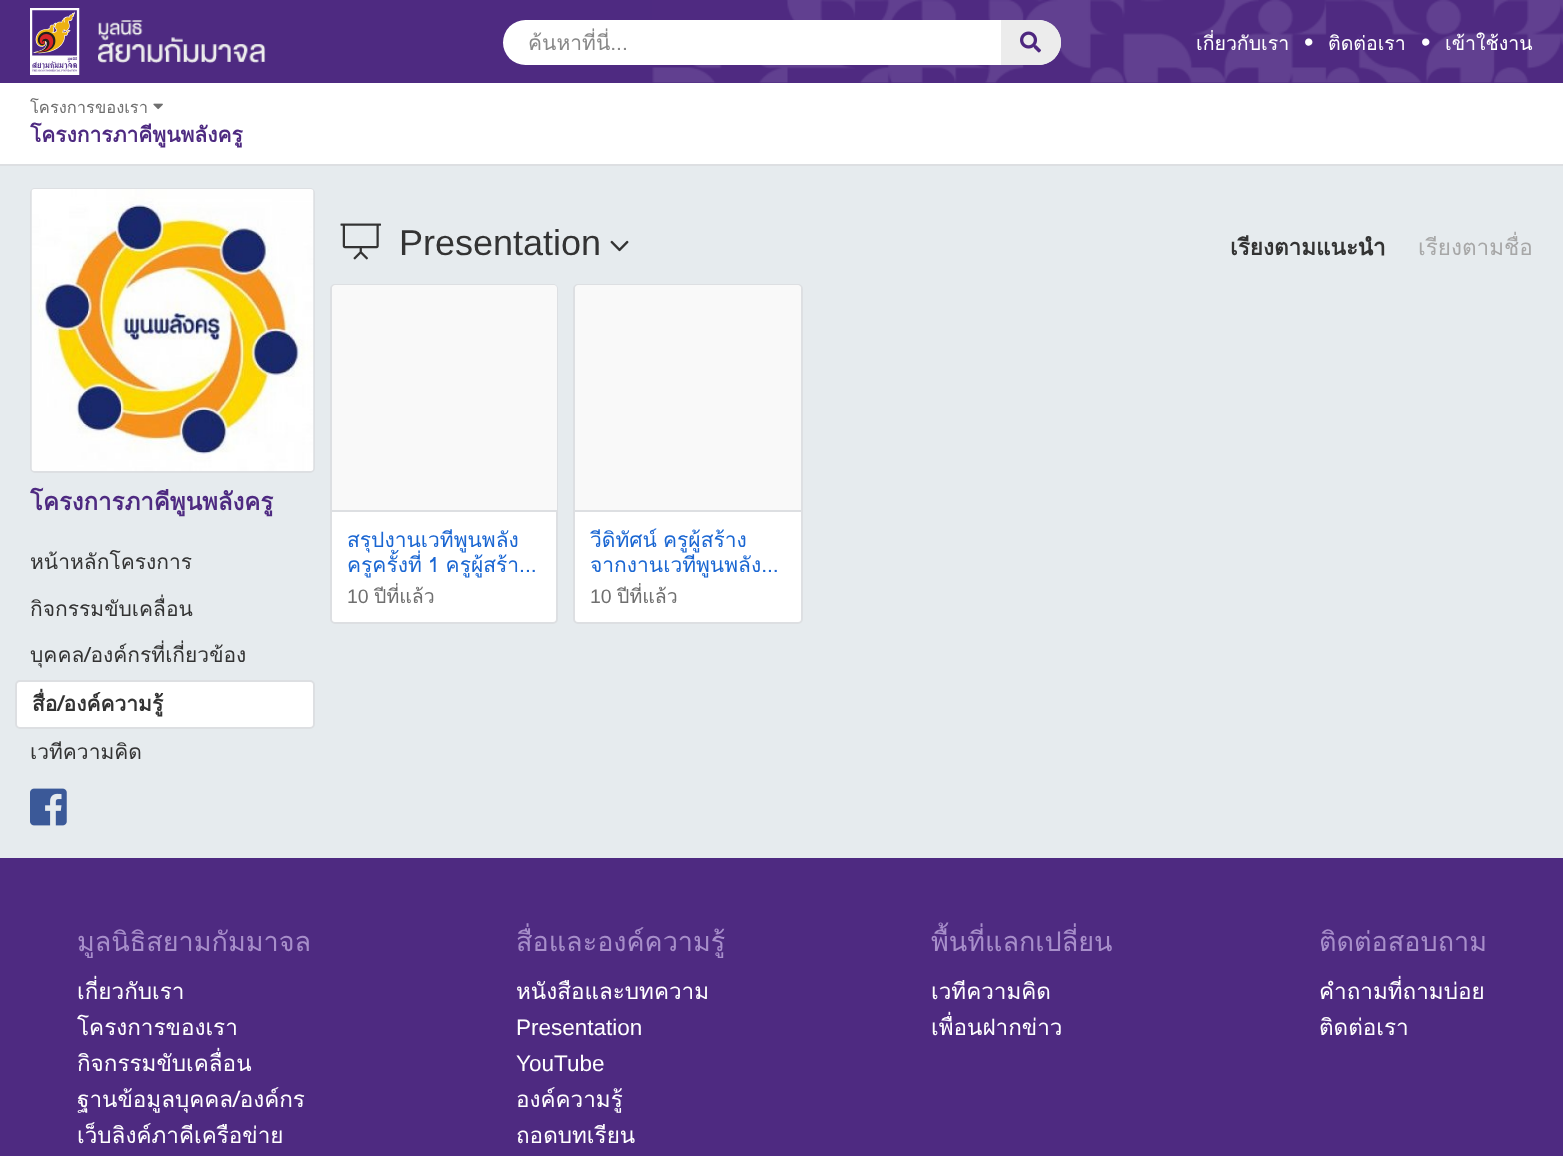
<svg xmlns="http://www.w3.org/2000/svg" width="1563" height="1156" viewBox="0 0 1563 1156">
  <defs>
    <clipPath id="clip1"><path d="M528 26h410v33H528z"/></clipPath>
  </defs>
  <rect width="100%" height="100%" fill="#e6ebee"/>
  <path d="M0 0h1563v83H0z" fill="#4e2a81"/>
  <image x="652" y="0" width="911" height="83" href="img/1.png"/>
  <image x="30" y="8" width="50" height="67" href="img/2.png"/>
  <image x="98" y="20" width="168" height="43" href="img/3.png"/>
  <rect x="503" y="20" width="558" height="45" rx="22.5" fill="#fff"/>
  <path d="M1001 20H1038.5C1051 20 1061 30 1061 42.5C1061 55 1051 65 1038.5 65H1001Z" fill="#ececec"/>
  <image x="1020" y="31" width="21" height="22" href="img/4.png"/>
  <path d="M0 83h1563v81H0z" fill="#fff"/>
  <path d="M0 164h1563v2H0z" fill="#dddfe2"/>
  <image x="153" y="103" width="10" height="7" href="img/5.png"/>
  <rect x="31" y="189" width="283" height="283" rx="4" fill="none" stroke="#dddfe2" stroke-width="2"/>
  <image x="31" y="189" width="283" height="282" href="img/6.png"/>
  <rect x="16" y="681" width="298" height="47" rx="4" fill="#fff" stroke="#dddfe2" stroke-width="2"/>
  <image x="30" y="788" width="37" height="38" href="img/7.png"/>
  <image x="340" y="223" width="41" height="37" href="img/8.png"/>
  <image x="610" y="240" width="19" height="12" href="img/9.png"/>
  <rect x="331" y="285" width="226" height="338" rx="4" fill="#fff" stroke="#dddfe2" stroke-width="2"/>
  <path d="M335 285H554C555.5 285 557 286.5 557 288V510H332V288C332 286.5 333.5 285 335 285Z" fill="#f9f9f9"/>
  <path d="M332 510h225v2H332z" fill="#dddfe2"/>
  <rect x="574" y="285" width="228" height="338" rx="4" fill="#fff" stroke="#dddfe2" stroke-width="2"/>
  <path d="M578 285H798C799.5 285 801 286.5 801 288V510H575V288C575 286.5 576.5 285 578 285Z" fill="#f9f9f9"/>
  <path d="M575 510h226v2H575z" fill="#dddfe2"/>
  <path d="M0 858h1563v298H0z" fill="#4e2a81"/>
  <g clip-path="url(#clip1)">
    <text x="528" y="50" font-family="Loma" font-size="21" fill="#888">ค้นหาที่นี่...</text>
  </g>
  <text x="1196" y="50" font-family="Loma" font-size="19.5" fill="#fff">เกี่ยวกับเรา</text>
  <text x="1304" y="51" font-family="Liberation Sans" font-size="27" fill="#fff">•</text>
  <text x="1328" y="50" font-family="Loma" font-size="19.5" fill="#fff">ติดต่อเรา</text>
  <text x="1421" y="51" font-family="Liberation Sans" font-size="27" fill="#fff">•</text>
  <text x="1445" y="50" font-family="Loma" font-size="19.5" fill="#fff">เข้าใช้งาน</text>
  <text x="30" y="113" font-family="Loma" font-size="16.5" fill="#6f6f6f">โครงการของเรา</text>
  <text x="30" y="142" font-family="Loma" font-size="21" font-weight="bold" fill="#4e2a81">โครงการภาคีพูนพลังครู</text>
  <text x="30" y="510" font-family="Loma" font-size="24" font-weight="bold" fill="#4e2a81">โครงการภาคีพูนพลังครู</text>
  <g font-family="Loma" font-size="21" fill="#333">
    <text x="30" y="569">หน้าหลักโครงการ</text>
    <text x="30" y="616">กิจกรรมขับเคลื่อน</text>
    <text x="30" y="662">บุคคล/องค์กรที่เกี่ยวข้อง</text>
  </g>
  <text x="32" y="711" font-family="Loma" font-size="21" font-weight="bold" fill="#333">สื่อ/องค์ความรู้</text>
  <text x="30" y="759" font-family="Loma" font-size="21" fill="#333">เวทีความคิด</text>
  <text x="399" y="255" font-family="Liberation Sans" font-size="36" fill="#333">Presentation</text>
  <text x="1230" y="255" font-family="Loma" font-size="22.5" font-weight="bold" fill="#333">เรียงตามแนะนำ</text>
  <text x="1418" y="255" font-family="Loma" font-size="22.5" fill="#a7a7a7">เรียงตามชื่อ</text>
  <g font-family="Loma" font-size="21" fill="#1a66d2">
    <text x="347" y="547">สรุปงานเวทีพูนพลัง</text>
    <text x="347" y="572" word-spacing="-1">ครูครั้งที่ 1 ครูผู้สร้า...</text>
  </g>
  <text x="347" y="603" font-family="Liberation Sans" font-size="19.5" fill="#6f6f6f">10</text>
  <text x="374" y="603" font-family="Loma" font-size="19.5" fill="#6f6f6f">ปีที่แล้ว</text>
  <g font-family="Loma" font-size="21" fill="#1a66d2">
    <text x="590" y="547" word-spacing="-1">วีดิทัศน์ ครูผู้สร้าง</text>
    <text x="590" y="572">จากงานเวทีพูนพลัง...</text>
  </g>
  <text x="590" y="603" font-family="Liberation Sans" font-size="19.5" fill="#6f6f6f">10</text>
  <text x="617" y="603" font-family="Loma" font-size="19.5" fill="#6f6f6f">ปีที่แล้ว</text>
  <text x="77" y="951" font-family="Loma" font-size="27" fill="#a78eca">มูลนิธิสยามกัมมาจล</text>
  <g font-family="Loma" font-size="22.5" fill="#fff">
    <text x="77" y="999">เกี่ยวกับเรา</text>
    <text x="77" y="1035">โครงการของเรา</text>
    <text x="77" y="1071">กิจกรรมขับเคลื่อน</text>
    <text x="77" y="1107">ฐานข้อมูลบุคคล/องค์กร</text>
    <text x="77" y="1143">เว็บลิงค์ภาคีเครือข่าย</text>
  </g>
  <text x="516" y="951" font-family="Loma" font-size="27" fill="#a78eca">สื่อและองค์ความรู้</text>
  <text x="516" y="999" font-family="Loma" font-size="22.5" fill="#fff">หนังสือและบทความ</text>
  <g font-family="Liberation Sans" font-size="22.5" fill="#fff">
    <text x="516" y="1035">Presentation</text>
    <text x="516" y="1071">YouTube</text>
  </g>
  <g font-family="Loma" font-size="22.5" fill="#fff">
    <text x="516" y="1107">องค์ความรู้</text>
    <text x="516" y="1143">ถอดบทเรียน</text>
  </g>
  <text x="931" y="951" font-family="Loma" font-size="27" fill="#a78eca">พื้นที่แลกเปลี่ยน</text>
  <g font-family="Loma" font-size="22.5" fill="#fff">
    <text x="931" y="999">เวทีความคิด</text>
    <text x="931" y="1035">เพื่อนฝากข่าว</text>
  </g>
  <text x="1319" y="951" font-family="Loma" font-size="27" fill="#a78eca">ติดต่อสอบถาม</text>
  <g font-family="Loma" font-size="22.5" fill="#fff">
    <text x="1319" y="999">คำถามที่ถามบ่อย</text>
    <text x="1319" y="1035">ติดต่อเรา</text>
  </g>
</svg>
